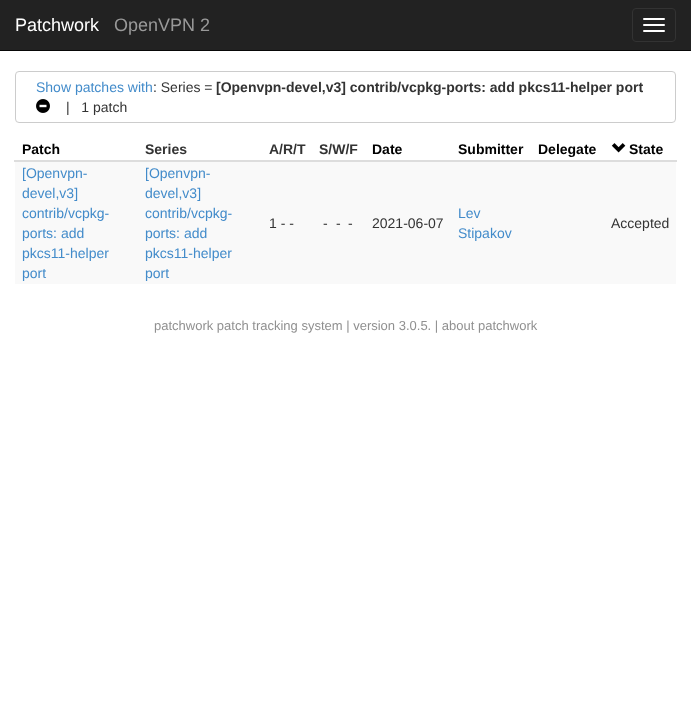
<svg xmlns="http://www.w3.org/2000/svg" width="691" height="713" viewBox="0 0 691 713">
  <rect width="100%" height="100%" fill="#fff"/>
  <path d="M0 0h691v50H0z" fill="#222"/>
  <path d="M0 50h691v1H0z" fill="#080808"/>
  <rect x="632.5" y="8.5" width="43" height="33" rx="3.5" fill="none" stroke="#333"/>
  <rect x="643" y="18" width="22" height="2" rx="1" fill="#fff"/>
  <rect x="643" y="24" width="22" height="2" rx="1" fill="#fff"/>
  <rect x="643" y="30" width="22" height="2" rx="1" fill="#fff"/>
  <rect x="15.5" y="71.5" width="660" height="51" rx="3.5" fill="none" stroke="#ccc"/>
  <image x="36" y="99" width="14" height="14" href="img/1.png"/>
  <path d="M14 160h663v2H14z" fill="#ddd"/>
  <image x="611" y="143" width="15" height="10" href="img/2.png"/>
  <path d="M15 162h661v122H15z" fill="#f9f9f9"/>
  <text x="15" y="31" font-family="Liberation Sans" font-size="18" fill="#fff">Patchwork</text>
  <text x="114" y="31" font-family="Liberation Sans" font-size="18" fill="#999">OpenVPN 2</text>
  <text x="36" y="92" font-family="Liberation Sans" font-size="14" fill="#428bca">Show patches with</text>
  <text x="153" y="92" font-family="Liberation Sans" font-size="14" fill="#333">: Series =</text>
  <text x="216" y="92" font-family="Liberation Sans" font-size="14" font-weight="bold" fill="#333">[Openvpn-devel,v3] contrib/vcpkg-ports: add pkcs11-helper port</text>
  <text x="66" y="112" font-family="Liberation Sans" font-size="14" fill="#333" xml:space="preserve">|   1 patch</text>
  <text x="22" y="154" font-family="Liberation Sans" font-size="14" font-weight="bold" fill="#000">Patch</text>
  <g font-family="Liberation Sans" font-size="14" font-weight="bold" fill="#333">
    <text x="145" y="154">Series</text>
    <text x="269" y="154">A/R/T</text>
    <text x="319" y="154">S/W/F</text>
  </g>
  <g font-family="Liberation Sans" font-size="14" font-weight="bold" fill="#000">
    <text x="372" y="154">Date</text>
    <text x="458" y="154">Submitter</text>
    <text x="538" y="154">Delegate</text>
    <text x="629" y="154">State</text>
  </g>
  <g font-family="Liberation Sans" font-size="14" fill="#428bca">
    <text x="22" y="178">[Openvpn-</text>
    <text x="22" y="198">devel,v3]</text>
    <text x="22" y="218">contrib/vcpkg-</text>
    <text x="22" y="238">ports: add</text>
    <text x="22" y="258">pkcs11-helper</text>
    <text x="22" y="278">port</text>
    <text x="145" y="178">[Openvpn-</text>
    <text x="145" y="198">devel,v3]</text>
    <text x="145" y="218">contrib/vcpkg-</text>
    <text x="145" y="238">ports: add</text>
    <text x="145" y="258">pkcs11-helper</text>
    <text x="145" y="278">port</text>
  </g>
  <g font-family="Liberation Sans" font-size="14" fill="#333">
    <text x="269" y="228">1 - -</text>
    <text x="323" y="228">-</text>
    <text x="336" y="228">-</text>
    <text x="348" y="228">-</text>
    <text x="372" y="228">2021-06-07</text>
  </g>
  <g font-family="Liberation Sans" font-size="14" fill="#428bca">
    <text x="458" y="218">Lev</text>
    <text x="458" y="238">Stipakov</text>
  </g>
  <text x="611" y="228" font-family="Liberation Sans" font-size="14" fill="#333">Accepted</text>
  <text x="154" y="330" font-family="Liberation Sans" font-size="13" fill="#909090">patchwork patch tracking system | version 3.0.5. | about patchwork</text>
</svg>
